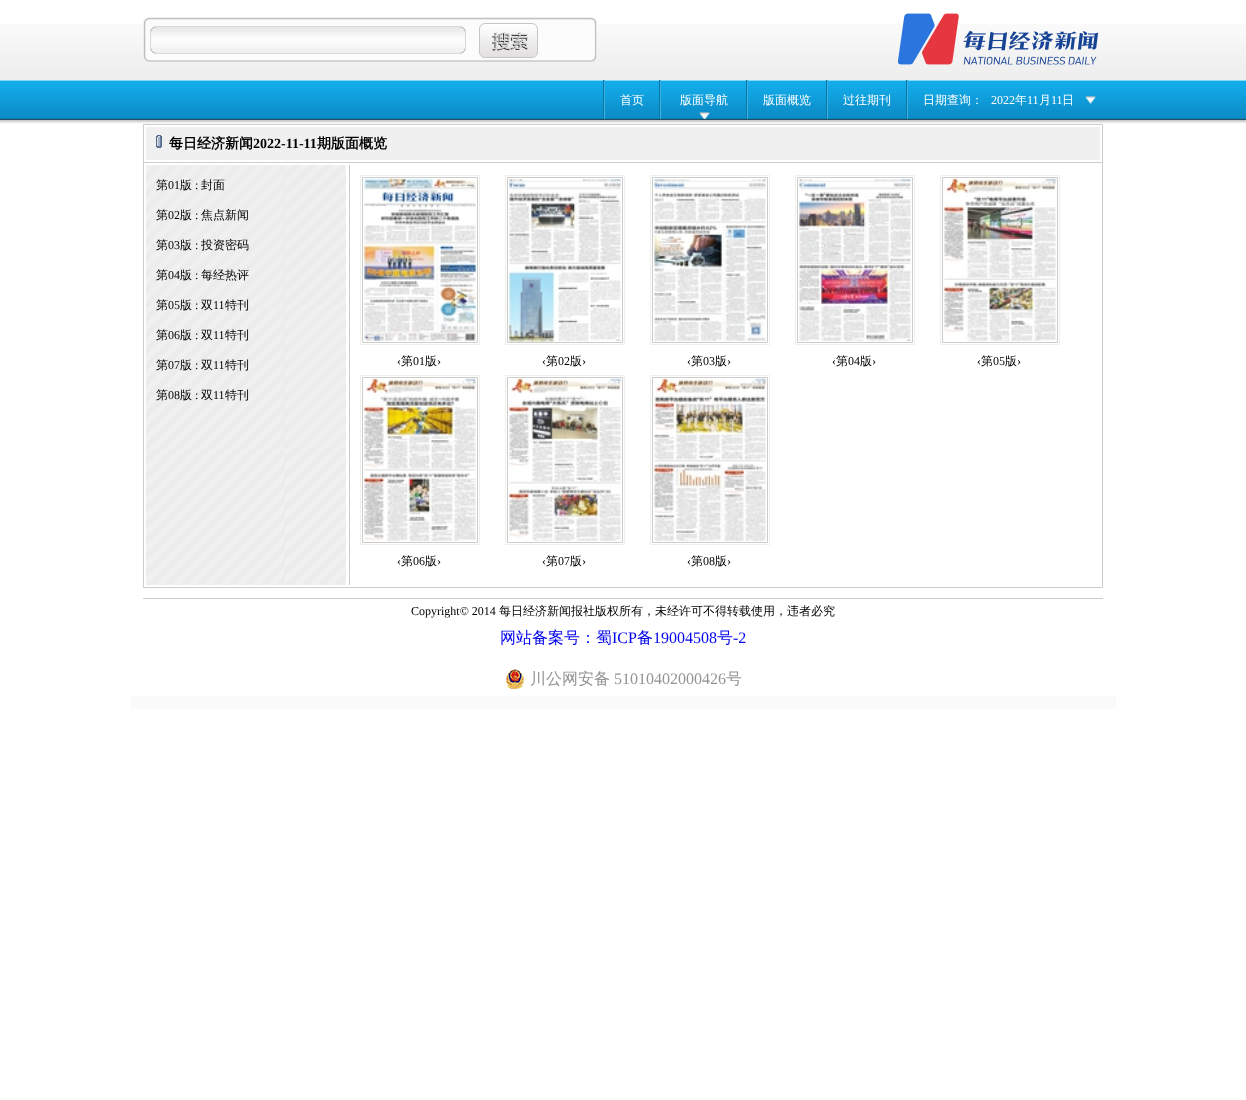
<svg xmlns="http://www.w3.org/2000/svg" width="1246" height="1100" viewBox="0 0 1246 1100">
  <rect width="100%" height="100%" fill="#fff"/>
  <image x="0" y="24" width="1246" height="56" href="img/1.png"/>
  <image x="143" y="17" width="454" height="45" href="img/2.png"/>
  <image x="150" y="26" width="316" height="28" href="img/3.png"/>
  <image x="479" y="23" width="59" height="35" href="img/4.png"/>
  <image x="898" y="13" width="200" height="52" href="img/5.png"/>
  <image x="0" y="80" width="1246" height="44" href="img/6.png"/>
  <path d="M603 80h1v39H603z" fill="#0a76a6"/>
  <path d="M659 80h1v39H659z" fill="#0a76a6"/>
  <path d="M604 80h1v39H604z" fill="#3fb1e1"/>
  <image x="699" y="80" width="47" height="39" href="img/7.png"/>
  <path d="M746 80h1v39H746z" fill="#0a76a6"/>
  <path d="M660 80h1v39H660z" fill="#3fb1e1"/>
  <path d="M826 80h1v39H826z" fill="#0a76a6"/>
  <path d="M747 80h1v39H747z" fill="#3fb1e1"/>
  <path d="M906 80h1v39H906z" fill="#0a76a6"/>
  <path d="M827 80h1v39H827z" fill="#3fb1e1"/>
  <path d="M907 80h1v39H907z" fill="#3fb1e1"/>
  <image x="1085" y="96" width="11" height="8" href="img/8.png"/>
  <path d="M143.5 124.5h959v463H143.5z" fill="none" stroke="#ccc"/>
  <path d="M146 127h954v33H146z" fill="#f0f0f0"/>
  <image x="156" y="135" width="6" height="13" href="img/9.png"/>
  <path d="M144 162h958v1H144z" fill="#ccc"/>
  <image x="146" y="165" width="200" height="420" href="img/10.png"/>
  <path d="M349 165h1v420H349z" fill="#ccc"/>
  <path d="M360.5 175.5h119v169H360.5z" fill="none" stroke="#f0f0e8"/>
  <path d="M362.5 177.5h115v165H362.5z" fill="none" stroke="#ccc"/>
  <image x="363" y="178" width="114" height="164" href="img/11.png"/>
  <path d="M505.5 175.5h119v169H505.5z" fill="none" stroke="#f0f0e8"/>
  <path d="M507.5 177.5h115v165H507.5z" fill="none" stroke="#ccc"/>
  <image x="508" y="178" width="113" height="164" href="img/12.png"/>
  <path d="M650.5 175.5h119v169H650.5z" fill="none" stroke="#f0f0e8"/>
  <path d="M652.5 177.5h115v165H652.5z" fill="none" stroke="#ccc"/>
  <image x="653" y="178" width="113" height="164" href="img/13.png"/>
  <path d="M795.5 175.5h119v169H795.5z" fill="none" stroke="#f0f0e8"/>
  <path d="M797.5 177.5h115v165H797.5z" fill="none" stroke="#ccc"/>
  <image x="798" y="178" width="113" height="164" href="img/14.png"/>
  <path d="M940.5 175.5h119v169H940.5z" fill="none" stroke="#f0f0e8"/>
  <path d="M942.5 177.5h115v165H942.5z" fill="none" stroke="#ccc"/>
  <image x="943" y="178" width="114" height="164" href="img/15.png"/>
  <path d="M360.5 375.5h119v169H360.5z" fill="none" stroke="#f0f0e8"/>
  <path d="M362.5 377.5h115v165H362.5z" fill="none" stroke="#ccc"/>
  <image x="363" y="378" width="113" height="164" href="img/16.png"/>
  <path d="M505.5 375.5h119v169H505.5z" fill="none" stroke="#f0f0e8"/>
  <path d="M507.5 377.5h115v165H507.5z" fill="none" stroke="#ccc"/>
  <image x="508" y="378" width="114" height="164" href="img/17.png"/>
  <path d="M650.5 375.5h119v169H650.5z" fill="none" stroke="#f0f0e8"/>
  <path d="M652.5 377.5h115v165H652.5z" fill="none" stroke="#ccc"/>
  <image x="653" y="378" width="113" height="164" href="img/18.png"/>
  <path d="M131 696h985v13H131z" fill="#fafafa"/>
  <path d="M143 598h960v1H143z" fill="#ccc"/>
  <image x="506" y="669" width="18" height="20" href="img/19.png"/>
  <g font-family="WenQuanYi Zen Hei" font-size="12" font-weight="500" fill="#fff">
    <text x="620" y="104">首页</text>
    <text x="680" y="104">版面导航</text>
    <text x="763" y="104">版面概览</text>
    <text x="843" y="104">过往期刊</text>
    <text x="923" y="104">日期查询：</text>
  </g>
  <text x="991" y="104" font-family="Liberation Serif" font-size="12" fill="#fff">2022</text>
  <text x="1015" y="104" font-family="WenQuanYi Zen Hei" font-size="12" font-weight="500" fill="#fff">年</text>
  <text x="1027" y="104" font-family="Liberation Serif" font-size="12" fill="#fff">11</text>
  <text x="1039" y="104" font-family="WenQuanYi Zen Hei" font-size="12" font-weight="500" fill="#fff">月</text>
  <text x="1051" y="104" font-family="Liberation Serif" font-size="12" fill="#fff">11</text>
  <text x="1062" y="104" font-family="WenQuanYi Zen Hei" font-size="12" font-weight="500" fill="#fff">日</text>
  <text x="169" y="148" font-family="WenQuanYi Zen Hei" font-size="14" font-weight="bold" fill="#000">每日经济新闻</text>
  <text x="253" y="148" font-family="Liberation Serif" font-size="14" font-weight="bold" fill="#000">2022-11-11</text>
  <text x="317" y="148" font-family="WenQuanYi Zen Hei" font-size="14" font-weight="bold" fill="#000">期版面概览</text>
  <text x="156" y="189" font-family="WenQuanYi Zen Hei" font-size="12" font-weight="500" fill="#000">第</text>
  <text x="168" y="189" font-family="Liberation Serif" font-size="12" fill="#000">01</text>
  <text x="180" y="189" font-family="WenQuanYi Zen Hei" font-size="12" font-weight="500" fill="#000">版</text>
  <text x="195" y="189" font-family="Liberation Serif" font-size="12" fill="#000">:</text>
  <g font-family="WenQuanYi Zen Hei" font-size="12" font-weight="500" fill="#000">
    <text x="201" y="189">封面</text>
    <text x="156" y="219">第</text>
  </g>
  <text x="168" y="219" font-family="Liberation Serif" font-size="12" fill="#000">02</text>
  <text x="180" y="219" font-family="WenQuanYi Zen Hei" font-size="12" font-weight="500" fill="#000">版</text>
  <text x="195" y="219" font-family="Liberation Serif" font-size="12" fill="#000">:</text>
  <g font-family="WenQuanYi Zen Hei" font-size="12" font-weight="500" fill="#000">
    <text x="201" y="219">焦点新闻</text>
    <text x="156" y="249">第</text>
  </g>
  <text x="168" y="249" font-family="Liberation Serif" font-size="12" fill="#000">03</text>
  <text x="180" y="249" font-family="WenQuanYi Zen Hei" font-size="12" font-weight="500" fill="#000">版</text>
  <text x="195" y="249" font-family="Liberation Serif" font-size="12" fill="#000">:</text>
  <g font-family="WenQuanYi Zen Hei" font-size="12" font-weight="500" fill="#000">
    <text x="201" y="249">投资密码</text>
    <text x="156" y="279">第</text>
  </g>
  <text x="168" y="279" font-family="Liberation Serif" font-size="12" fill="#000">04</text>
  <text x="180" y="279" font-family="WenQuanYi Zen Hei" font-size="12" font-weight="500" fill="#000">版</text>
  <text x="195" y="279" font-family="Liberation Serif" font-size="12" fill="#000">:</text>
  <g font-family="WenQuanYi Zen Hei" font-size="12" font-weight="500" fill="#000">
    <text x="201" y="279">每经热评</text>
    <text x="156" y="309">第</text>
  </g>
  <text x="168" y="309" font-family="Liberation Serif" font-size="12" fill="#000">05</text>
  <text x="180" y="309" font-family="WenQuanYi Zen Hei" font-size="12" font-weight="500" fill="#000">版</text>
  <text x="195" y="309" font-family="Liberation Serif" font-size="12" fill="#000">:</text>
  <text x="201" y="309" font-family="WenQuanYi Zen Hei" font-size="12" font-weight="500" fill="#000">双</text>
  <text x="213" y="309" font-family="Liberation Serif" font-size="12" fill="#000">11</text>
  <g font-family="WenQuanYi Zen Hei" font-size="12" font-weight="500" fill="#000">
    <text x="225" y="309">特刊</text>
    <text x="156" y="339">第</text>
  </g>
  <text x="168" y="339" font-family="Liberation Serif" font-size="12" fill="#000">06</text>
  <text x="180" y="339" font-family="WenQuanYi Zen Hei" font-size="12" font-weight="500" fill="#000">版</text>
  <text x="195" y="339" font-family="Liberation Serif" font-size="12" fill="#000">:</text>
  <text x="201" y="339" font-family="WenQuanYi Zen Hei" font-size="12" font-weight="500" fill="#000">双</text>
  <text x="213" y="339" font-family="Liberation Serif" font-size="12" fill="#000">11</text>
  <g font-family="WenQuanYi Zen Hei" font-size="12" font-weight="500" fill="#000">
    <text x="225" y="339">特刊</text>
    <text x="156" y="369">第</text>
  </g>
  <text x="168" y="369" font-family="Liberation Serif" font-size="12" fill="#000">07</text>
  <text x="180" y="369" font-family="WenQuanYi Zen Hei" font-size="12" font-weight="500" fill="#000">版</text>
  <text x="195" y="369" font-family="Liberation Serif" font-size="12" fill="#000">:</text>
  <text x="201" y="369" font-family="WenQuanYi Zen Hei" font-size="12" font-weight="500" fill="#000">双</text>
  <text x="213" y="369" font-family="Liberation Serif" font-size="12" fill="#000">11</text>
  <g font-family="WenQuanYi Zen Hei" font-size="12" font-weight="500" fill="#000">
    <text x="225" y="369">特刊</text>
    <text x="156" y="399">第</text>
  </g>
  <text x="168" y="399" font-family="Liberation Serif" font-size="12" fill="#000">08</text>
  <text x="180" y="399" font-family="WenQuanYi Zen Hei" font-size="12" font-weight="500" fill="#000">版</text>
  <text x="195" y="399" font-family="Liberation Serif" font-size="12" fill="#000">:</text>
  <text x="201" y="399" font-family="WenQuanYi Zen Hei" font-size="12" font-weight="500" fill="#000">双</text>
  <text x="213" y="399" font-family="Liberation Serif" font-size="12" fill="#000">11</text>
  <text x="225" y="399" font-family="WenQuanYi Zen Hei" font-size="12" font-weight="500" fill="#000">特刊</text>
  <text x="397" y="365" font-family="Liberation Serif" font-size="12" fill="#000">‹</text>
  <text x="401" y="365" font-family="WenQuanYi Zen Hei" font-size="12" font-weight="500" fill="#000">第</text>
  <text x="413" y="365" font-family="Liberation Serif" font-size="12" fill="#000">01</text>
  <text x="425" y="365" font-family="WenQuanYi Zen Hei" font-size="12" font-weight="500" fill="#000">版</text>
  <g font-family="Liberation Serif" font-size="12" fill="#000">
    <text x="437" y="365">›</text>
    <text x="542" y="365">‹</text>
  </g>
  <text x="546" y="365" font-family="WenQuanYi Zen Hei" font-size="12" font-weight="500" fill="#000">第</text>
  <text x="558" y="365" font-family="Liberation Serif" font-size="12" fill="#000">02</text>
  <text x="570" y="365" font-family="WenQuanYi Zen Hei" font-size="12" font-weight="500" fill="#000">版</text>
  <g font-family="Liberation Serif" font-size="12" fill="#000">
    <text x="582" y="365">›</text>
    <text x="687" y="365">‹</text>
  </g>
  <text x="691" y="365" font-family="WenQuanYi Zen Hei" font-size="12" font-weight="500" fill="#000">第</text>
  <text x="703" y="365" font-family="Liberation Serif" font-size="12" fill="#000">03</text>
  <text x="715" y="365" font-family="WenQuanYi Zen Hei" font-size="12" font-weight="500" fill="#000">版</text>
  <g font-family="Liberation Serif" font-size="12" fill="#000">
    <text x="727" y="365">›</text>
    <text x="832" y="365">‹</text>
  </g>
  <text x="836" y="365" font-family="WenQuanYi Zen Hei" font-size="12" font-weight="500" fill="#000">第</text>
  <text x="848" y="365" font-family="Liberation Serif" font-size="12" fill="#000">04</text>
  <text x="860" y="365" font-family="WenQuanYi Zen Hei" font-size="12" font-weight="500" fill="#000">版</text>
  <g font-family="Liberation Serif" font-size="12" fill="#000">
    <text x="872" y="365">›</text>
    <text x="977" y="365">‹</text>
  </g>
  <text x="981" y="365" font-family="WenQuanYi Zen Hei" font-size="12" font-weight="500" fill="#000">第</text>
  <text x="993" y="365" font-family="Liberation Serif" font-size="12" fill="#000">05</text>
  <text x="1005" y="365" font-family="WenQuanYi Zen Hei" font-size="12" font-weight="500" fill="#000">版</text>
  <g font-family="Liberation Serif" font-size="12" fill="#000">
    <text x="1017" y="365">›</text>
    <text x="397" y="565">‹</text>
  </g>
  <text x="401" y="565" font-family="WenQuanYi Zen Hei" font-size="12" font-weight="500" fill="#000">第</text>
  <text x="413" y="565" font-family="Liberation Serif" font-size="12" fill="#000">06</text>
  <text x="425" y="565" font-family="WenQuanYi Zen Hei" font-size="12" font-weight="500" fill="#000">版</text>
  <g font-family="Liberation Serif" font-size="12" fill="#000">
    <text x="437" y="565">›</text>
    <text x="542" y="565">‹</text>
  </g>
  <text x="546" y="565" font-family="WenQuanYi Zen Hei" font-size="12" font-weight="500" fill="#000">第</text>
  <text x="558" y="565" font-family="Liberation Serif" font-size="12" fill="#000">07</text>
  <text x="570" y="565" font-family="WenQuanYi Zen Hei" font-size="12" font-weight="500" fill="#000">版</text>
  <g font-family="Liberation Serif" font-size="12" fill="#000">
    <text x="582" y="565">›</text>
    <text x="687" y="565">‹</text>
  </g>
  <text x="691" y="565" font-family="WenQuanYi Zen Hei" font-size="12" font-weight="500" fill="#000">第</text>
  <text x="703" y="565" font-family="Liberation Serif" font-size="12" fill="#000">08</text>
  <text x="715" y="565" font-family="WenQuanYi Zen Hei" font-size="12" font-weight="500" fill="#000">版</text>
  <g font-family="Liberation Serif" font-size="12" fill="#000">
    <text x="727" y="565">›</text>
    <text x="411" y="615">Copyright© 2014</text>
  </g>
  <text x="499" y="615" font-family="WenQuanYi Zen Hei" font-size="12" font-weight="500" fill="#000">每日经济新闻报社版权所有，未经许可不得转载使用，违者必究</text>
  <text x="500" y="643" font-family="WenQuanYi Zen Hei" font-size="16" font-weight="500" fill="#00e">网站备案号：蜀</text>
  <text x="612" y="643" font-family="Liberation Serif" font-size="16" fill="#00e">ICP</text>
  <text x="637" y="643" font-family="WenQuanYi Zen Hei" font-size="16" font-weight="500" fill="#00e">备</text>
  <text x="653" y="643" font-family="Liberation Serif" font-size="16" fill="#00e">19004508</text>
  <text x="717" y="643" font-family="WenQuanYi Zen Hei" font-size="16" font-weight="500" fill="#00e">号</text>
  <text x="733" y="643" font-family="Liberation Serif" font-size="16" fill="#00e">-2</text>
  <text x="530" y="684" font-family="WenQuanYi Zen Hei" font-size="16" font-weight="500" fill="#939393">川公网安备</text>
  <text x="614" y="684" font-family="Liberation Serif" font-size="16" fill="#939393">51010402000426</text>
  <text x="726" y="684" font-family="WenQuanYi Zen Hei" font-size="16" font-weight="500" fill="#939393">号</text>
</svg>
